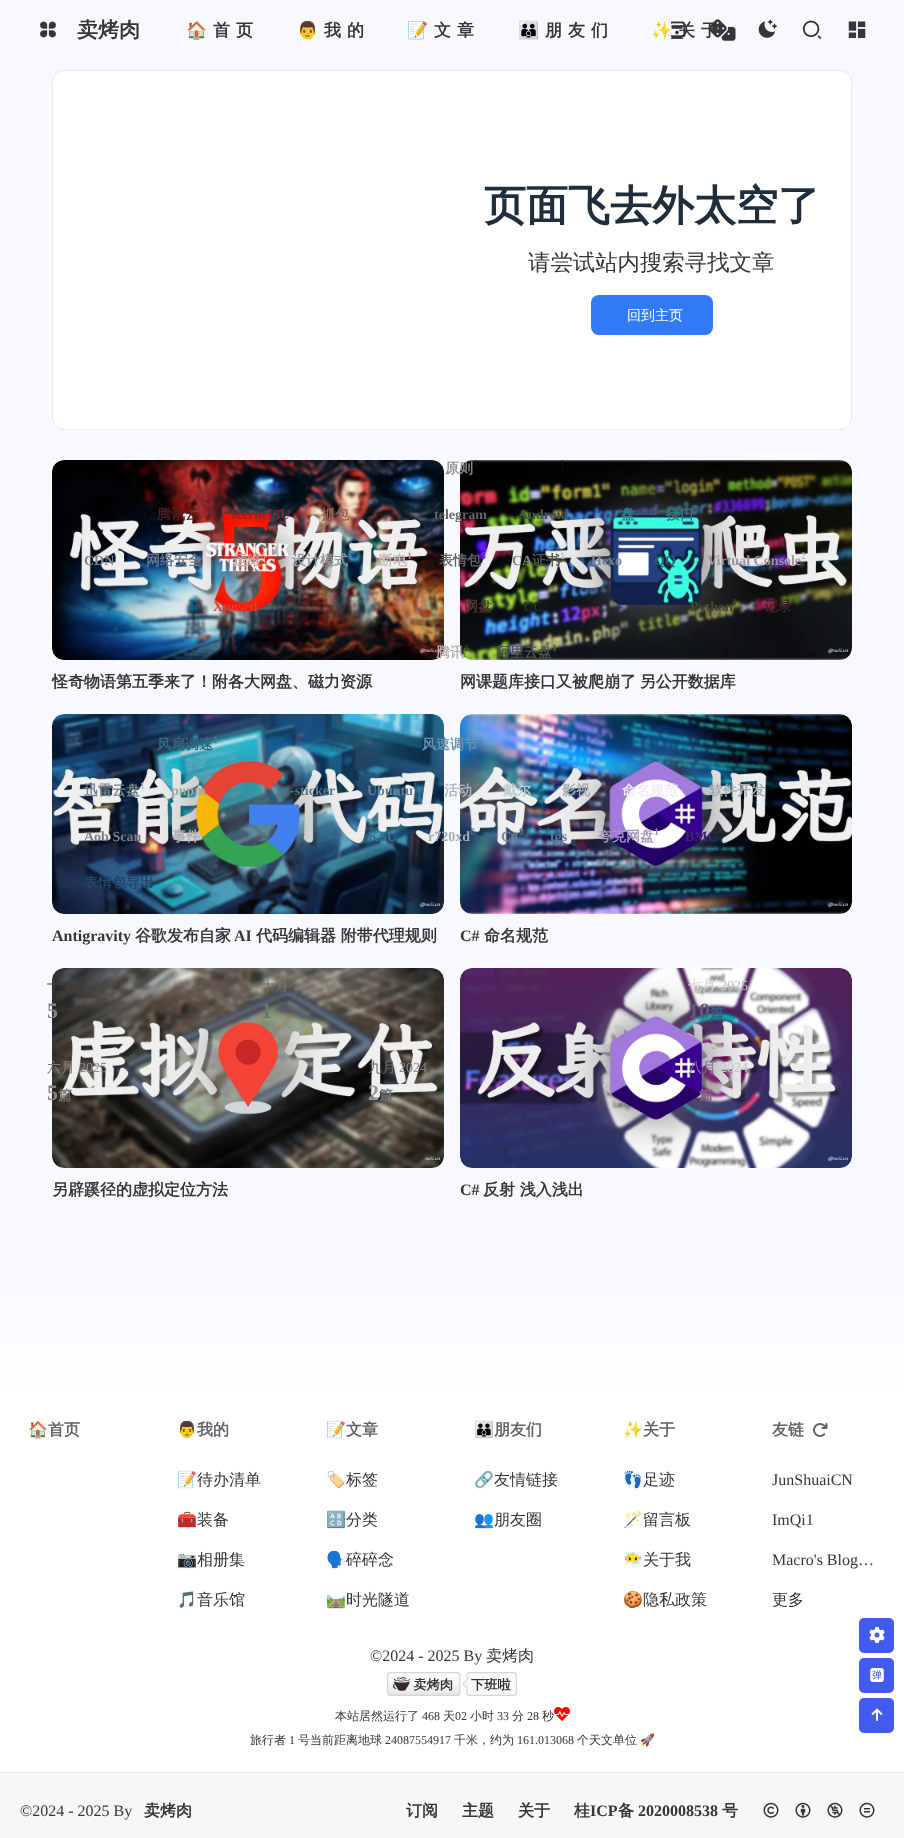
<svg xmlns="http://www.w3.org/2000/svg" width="904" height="1838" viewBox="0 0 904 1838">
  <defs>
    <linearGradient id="g1" gradientUnits="userSpaceOnUse" x1="452" y1="1262" x2="452" y2="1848"><stop offset="0" stop-color="#f8f8ff"/><stop offset="0.25" stop-color="#fff"/></linearGradient>
  </defs>
  <rect width="100%" height="100%" fill="#f7f9fe"/>
  <image x="40" y="21" width="16" height="17" href="img/1.png"/>
  <image x="758" y="19" width="19" height="19" href="img/4.png"/>
  <image x="802" y="20" width="20" height="20" href="img/5.png"/>
  <image x="848" y="21" width="18" height="17" href="img/6.png"/>
  <rect x="52.5" y="70.5" width="799" height="359" rx="11.5" fill="#fff" stroke="#e3e8f7"/>
  <rect x="591" y="295" width="122" height="40" rx="8" fill="#307af6"/>
  <rect x="52" y="460" width="392" height="200" rx="12" fill="#fff"/>
  <image x="52" y="460" width="392" height="200" href="img/7.png"/>
  <rect x="460" y="460" width="392" height="200" rx="12" fill="#fff"/>
  <image x="460" y="460" width="392" height="200" href="img/8.png"/>
  <rect x="52" y="714" width="392" height="200" rx="12" fill="#fff"/>
  <image x="52" y="714" width="392" height="200" href="img/9.png"/>
  <rect x="460" y="714" width="392" height="200" rx="12" fill="#fff"/>
  <image x="460" y="714" width="392" height="200" href="img/10.png"/>
  <rect x="52" y="968" width="392" height="200" rx="12" fill="#fff"/>
  <image x="52" y="968" width="392" height="200" href="img/11.png"/>
  <rect x="460" y="968" width="392" height="200" rx="12" fill="#fff"/>
  <image x="460" y="968" width="392" height="200" href="img/12.png"/>
  <path d="M0 1293h904v479H0z" fill="url(#g1)"/>
  <image x="813" y="1423" width="15" height="14" href="img/13.png"/>
  <image x="387" y="1672" width="130" height="24" href="img/14.png"/>
  <image x="554" y="1707" width="16" height="14" href="img/15.png"/>
  <path d="M0 1773h904v65H0z" fill="#f7f7f9"/>
  <path d="M0 1772h904v1H0z" fill="#e3e8f7"/>
  <image x="763" y="1802" width="16" height="16" href="img/16.png"/>
  <image x="795" y="1802" width="16" height="16" href="img/17.png"/>
  <image x="827" y="1802" width="16" height="16" href="img/18.png"/>
  <image x="859" y="1802" width="16" height="16" href="img/19.png"/>
  <rect x="859" y="1618" width="35" height="35" rx="5" fill="#425aef"/>
  <image x="869" y="1627" width="16" height="16" href="img/20.png"/>
  <rect x="859" y="1658" width="35" height="35" rx="5" fill="#425aef"/>
  <image x="870" y="1668" width="14" height="14" href="img/21.png"/>
  <rect x="859" y="1698" width="35" height="35" rx="5" fill="#425aef"/>
  <image x="871" y="1708" width="12" height="13" href="img/22.png"/>
  <text x="77" y="37" font-family="WenQuanYi Zen Hei" font-size="21" font-weight="bold" fill="#363636">卖烤肉</text>
  <text x="186" y="36" font-family="Noto Color Emoji" font-size="17" font-weight="bold" letter-spacing="6" fill="#363636">🏠</text>
  <text x="213" y="36" font-family="WenQuanYi Zen Hei" font-size="17" font-weight="bold" letter-spacing="6" fill="#363636">首页</text>
  <text x="297" y="36" font-family="Noto Color Emoji" font-size="17" font-weight="bold" letter-spacing="6" fill="#363636">👨</text>
  <text x="324" y="36" font-family="WenQuanYi Zen Hei" font-size="17" font-weight="bold" letter-spacing="6" fill="#363636">我的</text>
  <text x="407" y="36" font-family="Noto Color Emoji" font-size="17" font-weight="bold" letter-spacing="6" fill="#363636">📝</text>
  <text x="434" y="36" font-family="WenQuanYi Zen Hei" font-size="17" font-weight="bold" letter-spacing="6" fill="#363636">文章</text>
  <text x="518" y="36" font-family="Noto Color Emoji" font-size="17" font-weight="bold" letter-spacing="6" fill="#363636">👪</text>
  <text x="545" y="36" font-family="WenQuanYi Zen Hei" font-size="17" font-weight="bold" letter-spacing="6" fill="#363636">朋友们</text>
  <text x="651" y="36" font-family="Noto Color Emoji" font-size="17" font-weight="bold" letter-spacing="6" fill="#363636">✨</text>
  <text x="678" y="36" font-family="WenQuanYi Zen Hei" font-size="17" font-weight="bold" letter-spacing="6" fill="#363636">关于</text>
  <image x="671" y="21" width="15" height="18" href="img/2.png"/>
  <image x="708" y="19" width="28" height="22" href="img/3.png"/>
  <text x="484" y="220" font-family="WenQuanYi Zen Hei" font-size="42" font-weight="bold" fill="#1f2d3d">页面飞去外太空了</text>
  <text x="528" y="270" font-family="WenQuanYi Zen Hei" font-size="22.4" font-weight="500" fill="#363636">请尝试站内搜索寻找文章</text>
  <text x="627" y="320" font-family="WenQuanYi Zen Hei" font-size="14" font-weight="500" fill="#fff">回到主页</text>
  <g font-family="WenQuanYi Zen Hei" font-size="16" font-weight="bold" fill="#363636">
    <text x="52" y="687">怪奇物语第五季来了！附各大网盘、磁力资源</text>
    <text x="460" y="687" word-spacing="-1">网课题库接口又被爬崩了 另公开数据库</text>
  </g>
  <text x="52" y="941" font-family="Liberation Serif" font-size="16" font-weight="bold" fill="#363636">Antigravity</text>
  <text x="135" y="941" font-family="WenQuanYi Zen Hei" font-size="16" font-weight="bold" fill="#363636">谷歌发布自家</text>
  <text x="234" y="941" font-family="Liberation Serif" font-size="16" font-weight="bold" fill="#363636">AI</text>
  <text x="256" y="941" font-family="WenQuanYi Zen Hei" font-size="16" font-weight="bold" fill="#363636">代码编辑器 附带代理规则</text>
  <text x="460" y="941" font-family="Liberation Serif" font-size="16" font-weight="bold" fill="#363636">C#</text>
  <g font-family="WenQuanYi Zen Hei" font-size="16" font-weight="bold" fill="#363636">
    <text x="484" y="941">命名规范</text>
    <text x="52" y="1195">另辟蹊径的虚拟定位方法</text>
  </g>
  <text x="460" y="1195" font-family="Liberation Serif" font-size="16" font-weight="bold" fill="#363636">C#</text>
  <text x="483" y="1195" font-family="WenQuanYi Zen Hei" font-size="16" font-weight="bold" fill="#363636">反射 浅入浅出</text>
  <text x="28" y="1435" font-family="Noto Color Emoji" font-size="16" font-weight="bold" fill="#636369">🏠</text>
  <text x="48" y="1435" font-family="WenQuanYi Zen Hei" font-size="16" font-weight="bold" fill="#636369">首页</text>
  <text x="177" y="1435" font-family="Noto Color Emoji" font-size="16" font-weight="bold" fill="#636369">👨</text>
  <text x="197" y="1435" font-family="WenQuanYi Zen Hei" font-size="16" font-weight="bold" fill="#636369">我的</text>
  <text x="177" y="1485" font-family="Noto Color Emoji" font-size="16" fill="#363636">📝</text>
  <text x="197" y="1485" font-family="WenQuanYi Zen Hei" font-size="16" font-weight="500" fill="#363636">待办清单</text>
  <text x="177" y="1525" font-family="Noto Color Emoji" font-size="16" fill="#363636">🧰</text>
  <text x="197" y="1525" font-family="WenQuanYi Zen Hei" font-size="16" font-weight="500" fill="#363636">装备</text>
  <text x="177" y="1565" font-family="Noto Color Emoji" font-size="16" fill="#363636">📷</text>
  <text x="197" y="1565" font-family="WenQuanYi Zen Hei" font-size="16" font-weight="500" fill="#363636">相册集</text>
  <text x="177" y="1605" font-family="Noto Color Emoji" font-size="16" fill="#363636">🎵</text>
  <text x="197" y="1605" font-family="WenQuanYi Zen Hei" font-size="16" font-weight="500" fill="#363636">音乐馆</text>
  <text x="326" y="1435" font-family="Noto Color Emoji" font-size="16" font-weight="bold" fill="#636369">📝</text>
  <text x="346" y="1435" font-family="WenQuanYi Zen Hei" font-size="16" font-weight="bold" fill="#636369">文章</text>
  <text x="326" y="1485" font-family="Noto Color Emoji" font-size="16" fill="#363636">🏷️</text>
  <text x="346" y="1485" font-family="WenQuanYi Zen Hei" font-size="16" font-weight="500" fill="#363636">标签</text>
  <text x="326" y="1525" font-family="Noto Color Emoji" font-size="16" fill="#363636">🔠</text>
  <text x="346" y="1525" font-family="WenQuanYi Zen Hei" font-size="16" font-weight="500" fill="#363636">分类</text>
  <text x="326" y="1565" font-family="Noto Color Emoji" font-size="16" fill="#363636">🗣️</text>
  <text x="346" y="1565" font-family="WenQuanYi Zen Hei" font-size="16" font-weight="500" fill="#363636">碎碎念</text>
  <text x="326" y="1605" font-family="Noto Color Emoji" font-size="16" fill="#363636">🛤️</text>
  <text x="346" y="1605" font-family="WenQuanYi Zen Hei" font-size="16" font-weight="500" fill="#363636">时光隧道</text>
  <text x="474" y="1435" font-family="Noto Color Emoji" font-size="16" font-weight="bold" fill="#636369">👪</text>
  <text x="494" y="1435" font-family="WenQuanYi Zen Hei" font-size="16" font-weight="bold" fill="#636369">朋友们</text>
  <text x="474" y="1485" font-family="Noto Color Emoji" font-size="16" fill="#363636">🔗</text>
  <text x="494" y="1485" font-family="WenQuanYi Zen Hei" font-size="16" font-weight="500" fill="#363636">友情链接</text>
  <text x="474" y="1525" font-family="Noto Color Emoji" font-size="16" fill="#363636">👥</text>
  <text x="494" y="1525" font-family="WenQuanYi Zen Hei" font-size="16" font-weight="500" fill="#363636">朋友圈</text>
  <text x="623" y="1435" font-family="Noto Color Emoji" font-size="16" font-weight="bold" fill="#636369">✨</text>
  <text x="643" y="1435" font-family="WenQuanYi Zen Hei" font-size="16" font-weight="bold" fill="#636369">关于</text>
  <text x="623" y="1485" font-family="Noto Color Emoji" font-size="16" fill="#363636">👣</text>
  <text x="643" y="1485" font-family="WenQuanYi Zen Hei" font-size="16" font-weight="500" fill="#363636">足迹</text>
  <text x="623" y="1525" font-family="Noto Color Emoji" font-size="16" fill="#363636">🪄</text>
  <text x="643" y="1525" font-family="WenQuanYi Zen Hei" font-size="16" font-weight="500" fill="#363636">留言板</text>
  <text x="623" y="1565" font-family="Noto Color Emoji" font-size="16" fill="#363636">😶‍🌫️</text>
  <text x="643" y="1565" font-family="WenQuanYi Zen Hei" font-size="16" font-weight="500" fill="#363636">关于我</text>
  <text x="623" y="1605" font-family="Noto Color Emoji" font-size="16" fill="#363636">🍪</text>
  <text x="643" y="1605" font-family="WenQuanYi Zen Hei" font-size="16" font-weight="500" fill="#363636">隐私政策</text>
  <text x="772" y="1435" font-family="WenQuanYi Zen Hei" font-size="16" font-weight="bold" fill="#636369">友链</text>
  <g font-family="Liberation Serif" font-size="16" fill="#363636">
    <text x="772" y="1485">JunShuaiCN</text>
    <text x="772" y="1525">ImQi1</text>
    <text x="772" y="1565">Macro's Blog…</text>
  </g>
  <text x="772" y="1605" font-family="WenQuanYi Zen Hei" font-size="16" font-weight="500" fill="#363636">更多</text>
  <text x="370" y="1661" font-family="Liberation Serif" font-size="16" fill="#363636">©2024 - 2025 By</text>
  <text x="486" y="1661" font-family="WenQuanYi Zen Hei" font-size="16" font-weight="500" fill="#363636">卖烤肉</text>
  <text x="335" y="1720" font-family="WenQuanYi Zen Hei" font-size="12" font-weight="500" fill="#363636">本站居然运行了</text>
  <text x="422" y="1720" font-family="Liberation Serif" font-size="12" fill="#363636">468</text>
  <text x="443" y="1720" font-family="WenQuanYi Zen Hei" font-size="12" font-weight="500" fill="#363636">天</text>
  <text x="455" y="1720" font-family="Liberation Serif" font-size="12" fill="#363636">02</text>
  <text x="470" y="1720" font-family="WenQuanYi Zen Hei" font-size="12" font-weight="500" fill="#363636">小时</text>
  <text x="497" y="1720" font-family="Liberation Serif" font-size="12" fill="#363636">33</text>
  <text x="512" y="1720" font-family="WenQuanYi Zen Hei" font-size="12" font-weight="500" fill="#363636">分</text>
  <text x="527" y="1720" font-family="Liberation Serif" font-size="12" fill="#363636">28</text>
  <g font-family="WenQuanYi Zen Hei" font-size="12" font-weight="500" fill="#363636">
    <text x="542" y="1720">秒</text>
    <text x="250" y="1744">旅行者</text>
  </g>
  <text x="289" y="1744" font-family="Liberation Serif" font-size="12" fill="#363636">1</text>
  <text x="298" y="1744" font-family="WenQuanYi Zen Hei" font-size="12" font-weight="500" fill="#363636">号当前距离地球</text>
  <text x="385" y="1744" font-family="Liberation Serif" font-size="12" fill="#363636">24087554917</text>
  <text x="454" y="1744" font-family="WenQuanYi Zen Hei" font-size="12" font-weight="500" fill="#363636">千米，约为</text>
  <text x="517" y="1744" font-family="Liberation Serif" font-size="12" fill="#363636">161.013068</text>
  <text x="577" y="1744" font-family="WenQuanYi Zen Hei" font-size="12" font-weight="500" fill="#363636">个天文单位</text>
  <text x="640" y="1744" font-family="Noto Color Emoji" font-size="12" fill="#363636">🚀</text>
  <text x="20" y="1816" font-family="Liberation Serif" font-size="16" fill="#363636">©2024 - 2025 By</text>
  <g font-family="WenQuanYi Zen Hei" font-size="16" font-weight="bold" fill="#363636">
    <text x="144" y="1816">卖烤肉</text>
    <text x="406" y="1816">订阅</text>
    <text x="462" y="1816">主题</text>
    <text x="518" y="1816">关于</text>
    <text x="574" y="1816">桂</text>
  </g>
  <text x="590" y="1816" font-family="Liberation Serif" font-size="16" font-weight="bold" fill="#363636">ICP</text>
  <text x="618" y="1816" font-family="WenQuanYi Zen Hei" font-size="16" font-weight="bold" fill="#363636">备</text>
  <text x="638" y="1816" font-family="Liberation Serif" font-size="16" font-weight="bold" fill="#363636">2020008538</text>
  <text x="722" y="1816" font-family="WenQuanYi Zen Hei" font-size="16" font-weight="bold" fill="#363636">号</text>
  <text x="445" y="473" font-family="WenQuanYi Zen Hei" font-size="14" font-weight="bold" fill="#909195">原则</text>
  <g font-family="Liberation Serif" font-size="10" font-weight="bold" fill="#111113">
    <text x="473" y="467">1</text>
    <text x="560" y="467">1</text>
  </g>
  <text x="157" y="519" font-family="WenQuanYi Zen Hei" font-size="14" font-weight="bold" fill="#4a1f21">腾讯云</text>
  <text x="231" y="519" font-family="Liberation Serif" font-size="14" font-weight="bold" fill="#83292a">KernelSU</text>
  <text x="321" y="519" font-family="WenQuanYi Zen Hei" font-size="14" font-weight="bold" fill="#916659">抓包</text>
  <text x="434" y="519" font-family="Liberation Serif" font-size="14" font-weight="bold" fill="#636369">telegram</text>
  <text x="518" y="519" font-family="Liberation Serif" font-size="14" font-weight="bold" fill="#425642">Android</text>
  <text x="621" y="519" font-family="WenQuanYi Zen Hei" font-size="14" font-weight="bold" fill="#317e8f">盘</text>
  <text x="666" y="519" font-family="WenQuanYi Zen Hei" font-size="14" font-weight="bold" fill="#33787a">接口</text>
  <text x="781" y="513" font-family="Liberation Serif" font-size="10" font-weight="bold" fill="#12202a">1</text>
  <text x="84" y="565" font-family="Liberation Serif" font-size="14" font-weight="bold" fill="#7f868d">CDN</text>
  <text x="146" y="565" font-family="WenQuanYi Zen Hei" font-size="14" font-weight="bold" fill="#667991">网络安全</text>
  <text x="233" y="565" font-family="WenQuanYi Zen Hei" font-size="14" font-weight="bold" fill="#d2a09b">运维</text>
  <text x="261" y="559" font-family="Liberation Serif" font-size="10" font-weight="bold" fill="#ef8781">5</text>
  <text x="292" y="565" font-family="WenQuanYi Zen Hei" font-size="14" font-weight="bold" fill="#92989b">设计模式</text>
  <text x="379" y="565" font-family="WenQuanYi Zen Hei" font-size="14" font-weight="bold" fill="#c5bdbb">断电</text>
  <text x="407" y="559" font-family="Liberation Serif" font-size="10" font-weight="bold" fill="#9f9091">1</text>
  <text x="439" y="565" font-family="WenQuanYi Zen Hei" font-size="14" font-weight="bold" fill="#636369">表情包</text>
  <text x="481" y="559" font-family="Liberation Serif" font-size="10" font-weight="bold" fill="#7245cd">5</text>
  <text x="512" y="565" font-family="Liberation Serif" font-size="14" font-weight="bold" fill="#808779">CA</text>
  <text x="532" y="565" font-family="WenQuanYi Zen Hei" font-size="14" font-weight="bold" fill="#545852">证书</text>
  <text x="560" y="559" font-family="Liberation Serif" font-size="10" font-weight="bold" fill="#c5bdbb">1</text>
  <text x="591" y="565" font-family="Liberation Serif" font-size="14" font-weight="bold" fill="#768398">Hexo</text>
  <text x="654" y="565" font-family="Liberation Serif" font-size="14" font-weight="bold" fill="#1f6575">QQ</text>
  <text x="707" y="565" font-family="Liberation Serif" font-size="14" font-weight="bold" fill="#9d94a8">Virtual Console</text>
  <text x="801" y="559" font-family="Liberation Serif" font-size="10" font-weight="bold" fill="#b8b7b6">2</text>
  <text x="213" y="611" font-family="Liberation Serif" font-size="14" font-weight="bold" fill="#d64137">Xposed</text>
  <text x="464" y="611" font-family="WenQuanYi Zen Hei" font-size="14" font-weight="bold" fill="#4c3729">网盘</text>
  <text x="523" y="611" font-family="Liberation Serif" font-size="14" font-weight="bold" fill="#23321e">UC</text>
  <text x="690" y="611" font-family="Liberation Serif" font-size="14" font-weight="bold" fill="#444836">Python</text>
  <text x="732" y="605" font-family="Liberation Serif" font-size="10" font-weight="bold" fill="#434325">1</text>
  <text x="764" y="611" font-family="WenQuanYi Zen Hei" font-size="14" font-weight="bold" fill="#3c2323">记录</text>
  <text x="436" y="657" font-family="WenQuanYi Zen Hei" font-size="14" font-weight="bold" fill="#b9b1b2">腾讯</text>
  <text x="464" y="651" font-family="Liberation Serif" font-size="10" font-weight="bold" fill="#30451a">1</text>
  <text x="496" y="657" font-family="WenQuanYi Zen Hei" font-size="14" font-weight="bold" fill="#4b5745">阿里云盘</text>
  <text x="552" y="651" font-family="Liberation Serif" font-size="10" font-weight="bold" fill="#585c47">1</text>
  <text x="157" y="749" font-family="WenQuanYi Zen Hei" font-size="14" font-weight="bold" fill="#346881">风扇调速</text>
  <text x="213" y="743" font-family="Liberation Serif" font-size="10" font-weight="bold" fill="#388098">1</text>
  <text x="422" y="749" font-family="WenQuanYi Zen Hei" font-size="14" font-weight="bold" fill="#6792b5">风速调节</text>
  <text x="84" y="795" font-family="WenQuanYi Zen Hei" font-size="14" font-weight="bold" fill="#798490">迅雷云盘</text>
  <text x="140" y="789" font-family="Liberation Serif" font-size="10" font-weight="bold" fill="#b7bdc3">1</text>
  <text x="171" y="795" font-family="Liberation Serif" font-size="14" font-weight="bold" fill="#9ea9a2">pnpm</text>
  <text x="290" y="795" font-family="Liberation Serif" font-size="14" font-weight="bold" fill="#537b8a">-sticker</text>
  <text x="367" y="795" font-family="Liberation Serif" font-size="14" font-weight="bold" fill="#628198">Ubuntu</text>
  <text x="413" y="789" font-family="Liberation Serif" font-size="10" font-weight="bold" fill="#275371">1</text>
  <text x="444" y="795" font-family="WenQuanYi Zen Hei" font-size="14" font-weight="bold" fill="#adb2ba">活动</text>
  <text x="503" y="795" font-family="WenQuanYi Zen Hei" font-size="14" font-weight="bold" fill="#bacbd2">戴尔</text>
  <text x="562" y="795" font-family="WenQuanYi Zen Hei" font-size="14" font-weight="bold" fill="#a7adb7">影视</text>
  <text x="622" y="795" font-family="WenQuanYi Zen Hei" font-size="14" font-weight="bold" fill="#efe9f9">命名规范</text>
  <text x="709" y="795" font-family="WenQuanYi Zen Hei" font-size="14" font-weight="bold" fill="#a0a9ae">软件开发</text>
  <text x="84" y="841" font-family="Liberation Serif" font-size="14" font-weight="bold" fill="#797e8a">Aob Scan</text>
  <text x="172" y="841" font-family="WenQuanYi Zen Hei" font-size="14" font-weight="bold" fill="#adb0b4">事件</text>
  <text x="368" y="841" font-family="Liberation Serif" font-size="14" font-weight="bold" fill="#377291">KSU</text>
  <text x="428" y="841" font-family="Liberation Serif" font-size="14" font-weight="bold" fill="#a7adb7">r720xd</text>
  <text x="470" y="835" font-family="Liberation Serif" font-size="10" font-weight="bold" fill="#4d6783">6</text>
  <text x="501" y="841" font-family="Liberation Serif" font-size="14" font-weight="bold" fill="#7889a3">C#</text>
  <text x="519" y="835" font-family="Liberation Serif" font-size="10" font-weight="bold" fill="#5c6c80">8</text>
  <text x="550" y="841" font-family="Liberation Serif" font-size="14" font-weight="bold" fill="#607392">tgs</text>
  <text x="598" y="841" font-family="WenQuanYi Zen Hei" font-size="14" font-weight="bold" fill="#a398ba">夸克网盘</text>
  <text x="654" y="835" font-family="Liberation Serif" font-size="10" font-weight="bold" fill="#a090bc">1</text>
  <text x="685" y="841" font-family="Liberation Serif" font-size="14" font-weight="bold" fill="#3e2970">BMC</text>
  <text x="84" y="887" font-family="WenQuanYi Zen Hei" font-size="14" font-weight="bold" fill="#214569">表情包导出</text>
  <text x="47" y="990" font-family="WenQuanYi Zen Hei" font-size="14" font-weight="500" fill="#444">十</text>
  <text x="47" y="1018" font-family="Liberation Serif" font-size="22" font-weight="bold" fill="#848384">5</text>
  <text x="261" y="990" font-family="WenQuanYi Zen Hei" font-size="14" font-weight="500" fill="#76736f">十月</text>
  <text x="261" y="1018" font-family="Liberation Serif" font-size="22" font-weight="bold" fill="#6d766b">1</text>
  <text x="688" y="990" font-family="WenQuanYi Zen Hei" font-size="14" font-weight="500" fill="#d4d3d4">七月</text>
  <text x="720" y="990" font-family="Liberation Serif" font-size="14" fill="#c3bdc5">2025</text>
  <text x="688" y="1018" font-family="Liberation Serif" font-size="22" font-weight="bold" fill="#5b597d">10</text>
  <text x="710" y="1018" font-family="WenQuanYi Zen Hei" font-size="14" font-weight="bold" fill="#2d6481">篇</text>
  <text x="47" y="1072" font-family="WenQuanYi Zen Hei" font-size="14" font-weight="500" fill="#7d7b76">六月</text>
  <text x="79" y="1072" font-family="Liberation Serif" font-size="14" fill="#908d89">2025</text>
  <text x="47" y="1100" font-family="Liberation Serif" font-size="22" font-weight="bold" fill="#848384">5</text>
  <text x="58" y="1100" font-family="WenQuanYi Zen Hei" font-size="14" font-weight="bold" fill="#76736f">篇</text>
  <text x="368" y="1072" font-family="WenQuanYi Zen Hei" font-size="14" font-weight="500" fill="#6b6d6f">九月</text>
  <text x="399" y="1072" font-family="Liberation Serif" font-size="14" fill="#848384">2024</text>
  <text x="368" y="1100" font-family="Liberation Serif" font-size="22" font-weight="bold" fill="#92989b">2</text>
  <text x="379" y="1100" font-family="WenQuanYi Zen Hei" font-size="14" font-weight="bold" fill="#737475">篇</text>
  <text x="688" y="1072" font-family="WenQuanYi Zen Hei" font-size="14" font-weight="500" fill="#8a6fa4">八月</text>
  <text x="720" y="1072" font-family="Liberation Serif" font-size="14" fill="#c9c3c8">2024</text>
  <text x="699" y="1100" font-family="WenQuanYi Zen Hei" font-size="14" font-weight="bold" fill="#84638a">篇</text>
</svg>
